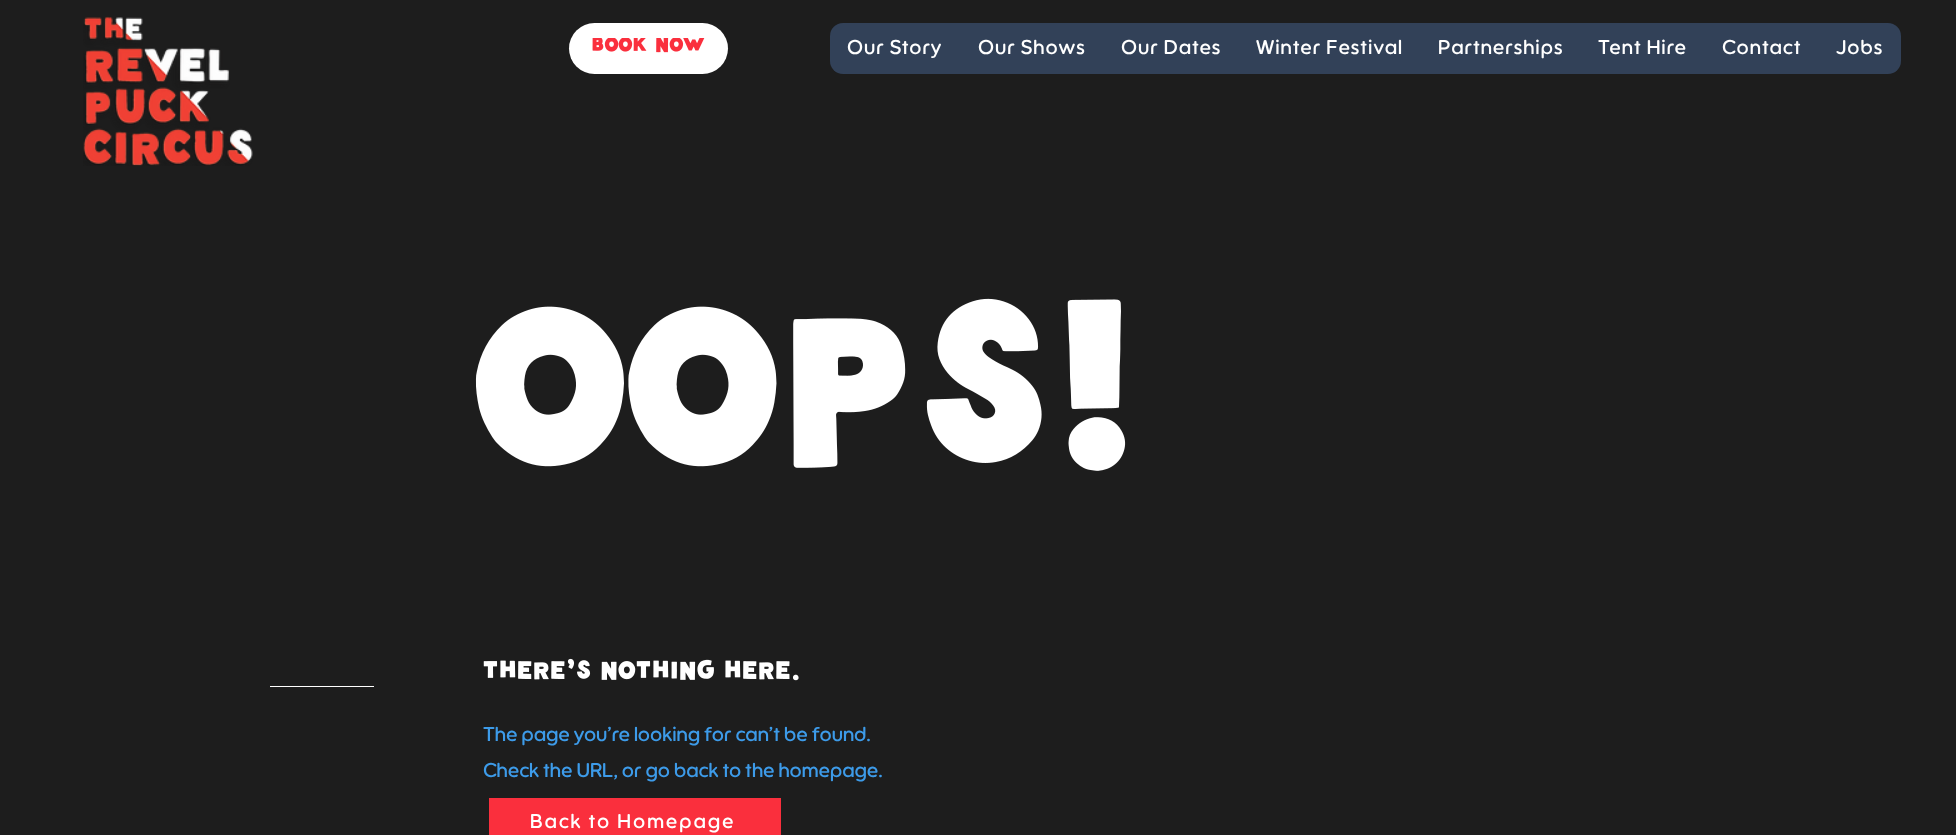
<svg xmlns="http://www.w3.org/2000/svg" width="1956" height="835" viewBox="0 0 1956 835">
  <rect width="100%" height="100%" fill="#1d1d1d"/>
  <image x="83" y="16" width="170" height="150" href="img/1.png"/>
  <rect x="569" y="23" width="159" height="51" rx="25.5" fill="#fff"/>
  <image x="592" y="38" width="113" height="15" href="img/2.png"/>
  <rect x="830" y="23" width="1071" height="51" rx="13" fill="#324158"/>
  <image x="475" y="298" width="651" height="173" href="img/3.png"/>
  <image x="483" y="658" width="316" height="23" href="img/4.png"/>
  <path d="M270 686h104v1H270z" fill="#fff"/>
  <path d="M489 798h292v37H489z" fill="#fa2f3d"/>
  <g font-family="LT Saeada" font-size="20" letter-spacing="1" fill="#fff">
    <text x="847" y="54">Our Story</text>
    <text x="978" y="54">Our Shows</text>
    <text x="1121" y="54">Our Dates</text>
    <text x="1256" y="54">Winter Festival</text>
    <text x="1438" y="54">Partnerships</text>
    <text x="1598" y="54">Tent Hire</text>
    <text x="1722" y="54">Contact</text>
    <text x="1836" y="54">Jobs</text>
  </g>
  <g font-family="LT Saeada" font-size="20" fill="#3d9be9">
    <text x="483" y="741">The page you’re looking for can’t be found.</text>
    <text x="483" y="777">Check the URL, or go back to the homepage.</text>
  </g>
  <text x="530" y="828" font-family="LT Saeada" font-size="20" letter-spacing="2" fill="#fff">Back to Homepage</text>
</svg>
